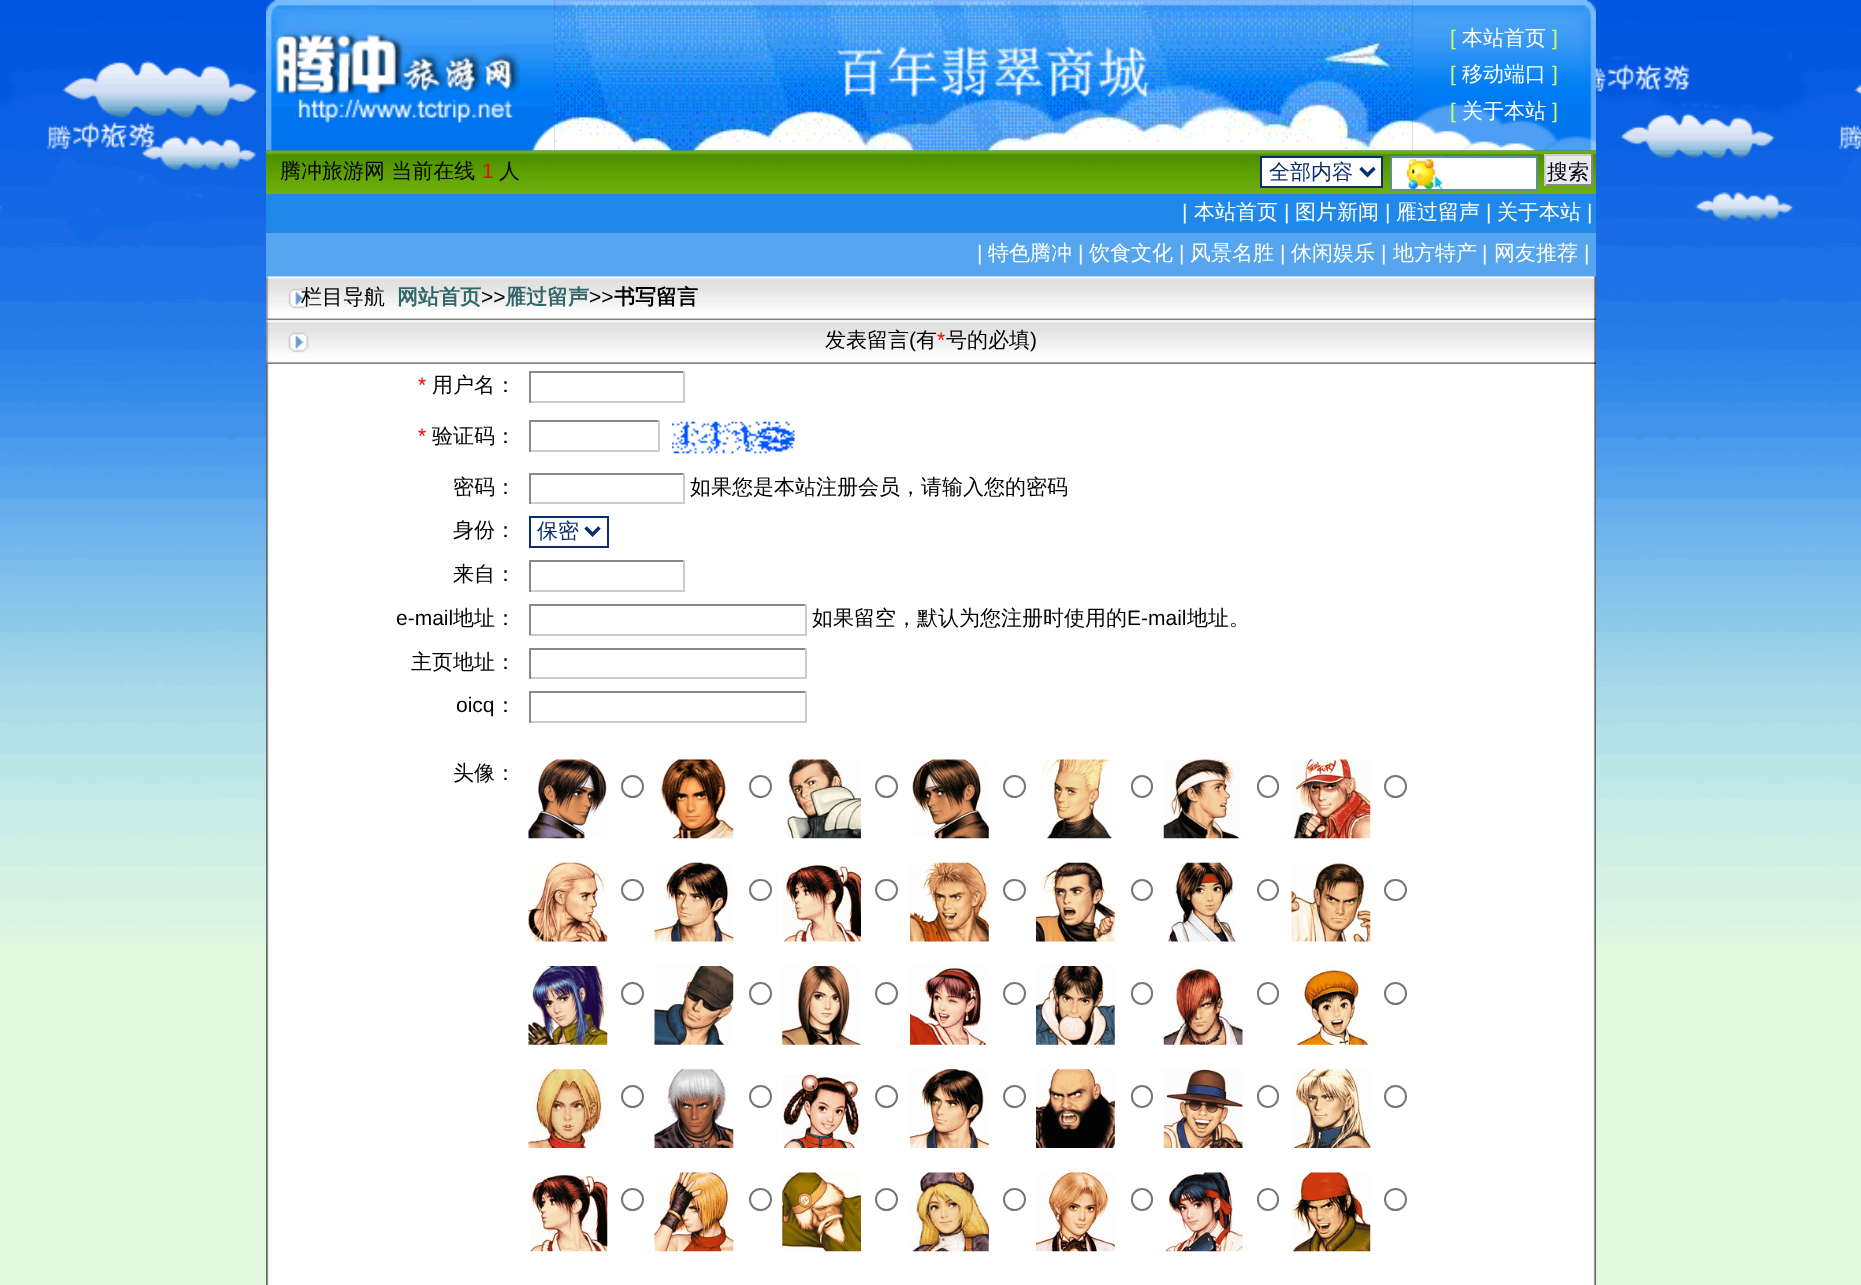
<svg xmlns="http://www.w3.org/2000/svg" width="1861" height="1285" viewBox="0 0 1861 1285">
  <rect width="100%" height="100%" fill="#e3f8e1"/>
  <image x="0" y="0" width="1861" height="944" href="img/1.png"/>
  <image x="266" y="0" width="289" height="151" href="img/2.png"/>
  <image x="554" y="0" width="859" height="151" href="img/3.png"/>
  <image x="1412" y="0" width="184" height="151" href="img/4.png"/>
  <image x="266" y="150" width="399" height="44" href="img/5.png"/>
  <image x="665" y="150" width="931" height="44" href="img/6.png"/>
  <path d="M1262 158h119v28H1262z" fill="#fff"/>
  <path d="M1260 156h123v2H1260z" fill="#082d71"/>
  <path d="M1381 156h2v31H1381z" fill="#082d71"/>
  <path d="M1260 186h123v2H1260z" fill="#082d71"/>
  <path d="M1260 156h2v31H1260z" fill="#082d72"/>
  <path d="M1360.5 168L1367.5 175L1374.5 168" fill="none" stroke="#082d71" stroke-width="3.5"/>
  <path d="M1392 158h144v31H1392z" fill="#fff"/>
  <image x="1406" y="155" width="37" height="34" href="img/7.png"/>
  <path d="M1391 157h146v33H1391z" fill="none" stroke="#5b9191" stroke-width="2"/>
  <path d="M1546 156h45v28H1546z" fill="#eaeaf4"/>
  <path d="M1544 154h49v2H1544z" fill="#ccc"/>
  <path d="M1591 154h2v32H1591z" fill="#888"/>
  <path d="M1544 184h49v2H1544z" fill="#888"/>
  <path d="M1544 154h2v32H1544z" fill="#ccc"/>
  <path d="M266 194h1330v39H266z" fill="#1f88e9"/>
  <path d="M266 233h1330v44H266z" fill="#56a6ef"/>
  <image x="266" y="276" width="1330" height="45" href="img/8.png"/>
  <image x="266" y="320" width="1330" height="44" href="img/9.png"/>
  <image x="266" y="364" width="1330" height="921" href="img/10.png"/>
  <path d="M529 371h155v2H529z" fill="#888"/>
  <path d="M683 371h2v32H683z" fill="#ccc"/>
  <path d="M529 401h155v2H529z" fill="#ccc"/>
  <path d="M529 371h2v32H529z" fill="#888"/>
  <path d="M529 420h131v2H529z" fill="#888"/>
  <path d="M658 420h2v32H658z" fill="#ccc"/>
  <path d="M529 450h131v2H529z" fill="#ccc"/>
  <path d="M529 420h2v32H529z" fill="#888"/>
  <image x="672" y="421" width="123" height="33" href="img/11.png"/>
  <path d="M529 473h155v2H529z" fill="#888"/>
  <path d="M683 473h2v31H683z" fill="#ccc"/>
  <path d="M529 502h155v2H529z" fill="#ccc"/>
  <path d="M529 473h2v31H529z" fill="#888"/>
  <path d="M529 516h80v2H529z" fill="#082d71"/>
  <path d="M607 516h2v32H607z" fill="#082d71"/>
  <path d="M529 546h80v2H529z" fill="#082d71"/>
  <path d="M529 516h2v32H529z" fill="#082d72"/>
  <path d="M585.5 527.5L592.5 534.5L599.5 527.5" fill="none" stroke="#082d71" stroke-width="3.5"/>
  <path d="M529 560h155v2H529z" fill="#888"/>
  <path d="M683 560h2v32H683z" fill="#ccc"/>
  <path d="M529 590h155v2H529z" fill="#ccc"/>
  <path d="M529 560h2v32H529z" fill="#888"/>
  <path d="M529 604h278v2H529z" fill="#888"/>
  <path d="M805 604h2v31H805z" fill="#ccc"/>
  <path d="M529 634h278v2H529z" fill="#ccc"/>
  <path d="M529 604h2v31H529z" fill="#888"/>
  <path d="M529 648h278v2H529z" fill="#888"/>
  <path d="M805 648h2v31H805z" fill="#ccc"/>
  <path d="M529 677h278v2H529z" fill="#ccc"/>
  <path d="M529 648h2v31H529z" fill="#888"/>
  <path d="M529 691h278v2H529z" fill="#888"/>
  <path d="M805 691h2v32H805z" fill="#ccc"/>
  <path d="M529 721h278v2H529z" fill="#ccc"/>
  <path d="M529 691h2v32H529z" fill="#888"/>
  <image x="528" y="759" width="79" height="80" href="img/12.png"/>
  <circle cx="632.5" cy="786.5" r="10.5" fill="none" stroke="#767676" stroke-width="2"/>
  <image x="660" y="759" width="74" height="80" href="img/13.png"/>
  <circle cx="760.5" cy="786.5" r="10.5" fill="none" stroke="#767676" stroke-width="2"/>
  <image x="787" y="759" width="74" height="80" href="img/14.png"/>
  <circle cx="886.5" cy="786.5" r="10.5" fill="none" stroke="#767676" stroke-width="2"/>
  <image x="912" y="759" width="77" height="80" href="img/15.png"/>
  <circle cx="1014.5" cy="786.5" r="10.5" fill="none" stroke="#767676" stroke-width="2"/>
  <image x="1041" y="759" width="72" height="80" href="img/16.png"/>
  <rect x="1132" y="776" width="20" height="21" rx="10" fill="none" stroke="#767676" stroke-width="2"/>
  <image x="1163" y="759" width="77" height="80" href="img/17.png"/>
  <rect x="1258" y="776" width="20" height="21" rx="10" fill="none" stroke="#767676" stroke-width="2"/>
  <image x="1292" y="759" width="79" height="80" href="img/18.png"/>
  <circle cx="1395.5" cy="786.5" r="10.5" fill="none" stroke="#767676" stroke-width="2"/>
  <image x="528" y="862" width="80" height="80" href="img/19.png"/>
  <rect x="622" y="880" width="21" height="20" rx="10" fill="none" stroke="#767676" stroke-width="2"/>
  <image x="654" y="862" width="80" height="80" href="img/20.png"/>
  <rect x="750" y="880" width="21" height="20" rx="10" fill="none" stroke="#767676" stroke-width="2"/>
  <image x="783" y="865" width="78" height="77" href="img/21.png"/>
  <rect x="876" y="880" width="21" height="20" rx="10" fill="none" stroke="#767676" stroke-width="2"/>
  <image x="910" y="862" width="79" height="80" href="img/22.png"/>
  <rect x="1004" y="880" width="21" height="20" rx="10" fill="none" stroke="#767676" stroke-width="2"/>
  <image x="1036" y="862" width="79" height="80" href="img/23.png"/>
  <circle cx="1142" cy="890" r="10" fill="none" stroke="#767676" stroke-width="2"/>
  <image x="1168" y="862" width="68" height="80" href="img/24.png"/>
  <circle cx="1268" cy="890" r="10" fill="none" stroke="#767676" stroke-width="2"/>
  <image x="1291" y="863" width="80" height="79" href="img/25.png"/>
  <rect x="1385" y="880" width="21" height="20" rx="10" fill="none" stroke="#767676" stroke-width="2"/>
  <image x="528" y="966" width="80" height="79" href="img/26.png"/>
  <circle cx="632.5" cy="993.5" r="10.5" fill="none" stroke="#767676" stroke-width="2"/>
  <image x="654" y="966" width="80" height="79" href="img/27.png"/>
  <circle cx="760.5" cy="993.5" r="10.5" fill="none" stroke="#767676" stroke-width="2"/>
  <image x="782" y="966" width="79" height="79" href="img/28.png"/>
  <circle cx="886.5" cy="993.5" r="10.5" fill="none" stroke="#767676" stroke-width="2"/>
  <image x="910" y="966" width="77" height="79" href="img/29.png"/>
  <circle cx="1014.5" cy="993.5" r="10.5" fill="none" stroke="#767676" stroke-width="2"/>
  <image x="1036" y="966" width="79" height="79" href="img/30.png"/>
  <rect x="1132" y="983" width="20" height="21" rx="10" fill="none" stroke="#767676" stroke-width="2"/>
  <image x="1163" y="966" width="80" height="79" href="img/31.png"/>
  <rect x="1258" y="983" width="20" height="21" rx="10" fill="none" stroke="#767676" stroke-width="2"/>
  <image x="1296" y="966" width="73" height="79" href="img/32.png"/>
  <circle cx="1395.5" cy="993.5" r="10.5" fill="none" stroke="#767676" stroke-width="2"/>
  <image x="528" y="1069" width="79" height="79" href="img/33.png"/>
  <circle cx="632.5" cy="1096.5" r="10.5" fill="none" stroke="#767676" stroke-width="2"/>
  <image x="654" y="1069" width="80" height="79" href="img/34.png"/>
  <circle cx="760.5" cy="1096.5" r="10.5" fill="none" stroke="#767676" stroke-width="2"/>
  <image x="783" y="1074" width="76" height="74" href="img/35.png"/>
  <circle cx="886.5" cy="1096.5" r="10.5" fill="none" stroke="#767676" stroke-width="2"/>
  <image x="910" y="1069" width="79" height="79" href="img/36.png"/>
  <circle cx="1014.5" cy="1096.5" r="10.5" fill="none" stroke="#767676" stroke-width="2"/>
  <image x="1036" y="1069" width="79" height="79" href="img/37.png"/>
  <rect x="1132" y="1086" width="20" height="21" rx="10" fill="none" stroke="#767676" stroke-width="2"/>
  <image x="1163" y="1069" width="80" height="79" href="img/38.png"/>
  <rect x="1258" y="1086" width="20" height="21" rx="10" fill="none" stroke="#767676" stroke-width="2"/>
  <image x="1293" y="1069" width="78" height="79" href="img/39.png"/>
  <circle cx="1395.5" cy="1096.5" r="10.5" fill="none" stroke="#767676" stroke-width="2"/>
  <image x="530" y="1175" width="78" height="77" href="img/40.png"/>
  <circle cx="632.5" cy="1199.5" r="10.5" fill="none" stroke="#767676" stroke-width="2"/>
  <image x="654" y="1172" width="80" height="80" href="img/41.png"/>
  <circle cx="760.5" cy="1199.5" r="10.5" fill="none" stroke="#767676" stroke-width="2"/>
  <image x="782" y="1172" width="79" height="80" href="img/42.png"/>
  <circle cx="886.5" cy="1199.5" r="10.5" fill="none" stroke="#767676" stroke-width="2"/>
  <image x="910" y="1172" width="79" height="80" href="img/43.png"/>
  <circle cx="1014.5" cy="1199.5" r="10.5" fill="none" stroke="#767676" stroke-width="2"/>
  <image x="1036" y="1172" width="79" height="80" href="img/44.png"/>
  <rect x="1132" y="1189" width="20" height="21" rx="10" fill="none" stroke="#767676" stroke-width="2"/>
  <image x="1165" y="1172" width="78" height="80" href="img/45.png"/>
  <rect x="1258" y="1189" width="20" height="21" rx="10" fill="none" stroke="#767676" stroke-width="2"/>
  <image x="1291" y="1172" width="80" height="80" href="img/46.png"/>
  <circle cx="1395.5" cy="1199.5" r="10.5" fill="none" stroke="#767676" stroke-width="2"/>
  <text x="1450" y="45" font-family="Liberation Sans" font-size="21" fill="#cf6">[</text>
  <text x="1462" y="45" font-family="WenQuanYi Zen Hei" font-size="21" font-weight="500" fill="#fff">本站首页</text>
  <g font-family="Liberation Sans" font-size="21" fill="#cf6">
    <text x="1552" y="45">]</text>
    <text x="1450" y="81">[</text>
  </g>
  <text x="1462" y="81" font-family="WenQuanYi Zen Hei" font-size="21" font-weight="500" fill="#fff">移动端口</text>
  <g font-family="Liberation Sans" font-size="21" fill="#cf6">
    <text x="1552" y="81">]</text>
    <text x="1450" y="118">[</text>
  </g>
  <text x="1462" y="118" font-family="WenQuanYi Zen Hei" font-size="21" font-weight="500" fill="#fff">关于本站</text>
  <text x="1552" y="118" font-family="Liberation Sans" font-size="21" fill="#cf6">]</text>
  <text x="280" y="178" font-family="WenQuanYi Zen Hei" font-size="21" font-weight="500" fill="#000">腾冲旅游网 当前在线</text>
  <text x="482" y="178" font-family="Liberation Sans" font-size="21" fill="#f00">1</text>
  <text x="499" y="178" font-family="WenQuanYi Zen Hei" font-size="21" font-weight="500" fill="#000">人</text>
  <text x="1269" y="179" font-family="WenQuanYi Zen Hei" font-size="21" font-weight="500" fill="#082d71">全部内容</text>
  <text x="1547" y="179" font-family="WenQuanYi Zen Hei" font-size="21" font-weight="500" fill="#000">搜索</text>
  <text x="1182" y="219" font-family="Liberation Sans" font-size="21" fill="#fff">|</text>
  <text x="1194" y="219" font-family="WenQuanYi Zen Hei" font-size="21" font-weight="500" fill="#fff">本站首页</text>
  <text x="1284" y="219" font-family="Liberation Sans" font-size="21" fill="#fff">|</text>
  <text x="1295" y="219" font-family="WenQuanYi Zen Hei" font-size="21" font-weight="500" fill="#fff">图片新闻</text>
  <text x="1385" y="219" font-family="Liberation Sans" font-size="21" fill="#fff">|</text>
  <text x="1396" y="219" font-family="WenQuanYi Zen Hei" font-size="21" font-weight="500" fill="#fff">雁过留声</text>
  <text x="1486" y="219" font-family="Liberation Sans" font-size="21" fill="#fff">|</text>
  <text x="1497" y="219" font-family="WenQuanYi Zen Hei" font-size="21" font-weight="500" fill="#fff">关于本站</text>
  <g font-family="Liberation Sans" font-size="21" fill="#fff">
    <text x="1587" y="219">|</text>
    <text x="977" y="260">|</text>
  </g>
  <text x="988" y="260" font-family="WenQuanYi Zen Hei" font-size="21" font-weight="500" fill="#fff">特色腾冲</text>
  <text x="1078" y="260" font-family="Liberation Sans" font-size="21" fill="#fff">|</text>
  <text x="1089" y="260" font-family="WenQuanYi Zen Hei" font-size="21" font-weight="500" fill="#fff">饮食文化</text>
  <text x="1179" y="260" font-family="Liberation Sans" font-size="21" fill="#fff">|</text>
  <text x="1190" y="260" font-family="WenQuanYi Zen Hei" font-size="21" font-weight="500" fill="#fff">风景名胜</text>
  <text x="1280" y="260" font-family="Liberation Sans" font-size="21" fill="#fff">|</text>
  <text x="1291" y="260" font-family="WenQuanYi Zen Hei" font-size="21" font-weight="500" fill="#fff">休闲娱乐</text>
  <text x="1381" y="260" font-family="Liberation Sans" font-size="21" fill="#fff">|</text>
  <text x="1393" y="260" font-family="WenQuanYi Zen Hei" font-size="21" font-weight="500" fill="#fff">地方特产</text>
  <text x="1482" y="260" font-family="Liberation Sans" font-size="21" fill="#fff">|</text>
  <text x="1494" y="260" font-family="WenQuanYi Zen Hei" font-size="21" font-weight="500" fill="#fff">网友推荐</text>
  <text x="1584" y="260" font-family="Liberation Sans" font-size="21" fill="#fff">|</text>
  <text x="301" y="304" font-family="WenQuanYi Zen Hei" font-size="21" font-weight="500" fill="#000">栏目导航</text>
  <text x="397" y="304" font-family="WenQuanYi Zen Hei" font-size="21" font-weight="bold" fill="#366">网站首页</text>
  <text x="481" y="304" font-family="Liberation Sans" font-size="21" fill="#000">&gt;&gt;</text>
  <text x="505" y="304" font-family="WenQuanYi Zen Hei" font-size="21" font-weight="bold" fill="#366">雁过留声</text>
  <text x="589" y="304" font-family="Liberation Sans" font-size="21" fill="#000">&gt;&gt;</text>
  <text x="614" y="304" font-family="WenQuanYi Zen Hei" font-size="21" font-weight="bold" fill="#000">书写留言</text>
  <text x="825" y="347" font-family="WenQuanYi Zen Hei" font-size="21" font-weight="500" fill="#000">发表留言</text>
  <text x="909" y="347" font-family="Liberation Sans" font-size="21" fill="#000">(</text>
  <text x="916" y="347" font-family="WenQuanYi Zen Hei" font-size="21" font-weight="500" fill="#000">有</text>
  <text x="937" y="347" font-family="Liberation Sans" font-size="21" fill="#f00">*</text>
  <text x="946" y="347" font-family="WenQuanYi Zen Hei" font-size="21" font-weight="500" fill="#000">号的必填</text>
  <text x="1030" y="347" font-family="Liberation Sans" font-size="21" fill="#000">)</text>
  <text x="418" y="392" font-family="Liberation Sans" font-size="21" fill="#f00">*</text>
  <text x="432" y="392" font-family="WenQuanYi Zen Hei" font-size="21" font-weight="500" fill="#000">用户名：</text>
  <text x="418" y="443" font-family="Liberation Sans" font-size="21" fill="#f00">*</text>
  <g font-family="WenQuanYi Zen Hei" font-size="21" font-weight="500" fill="#000">
    <text x="432" y="443">验证码：</text>
    <text x="453" y="494">密码：</text>
    <text x="690" y="494">如果您是本站注册会员，请输入您的密码</text>
    <text x="453" y="537">身份：</text>
  </g>
  <text x="537" y="538" font-family="WenQuanYi Zen Hei" font-size="21" font-weight="500" fill="#082d71">保密</text>
  <text x="453" y="581" font-family="WenQuanYi Zen Hei" font-size="21" font-weight="500" fill="#000">来自：</text>
  <text x="396" y="625" font-family="Liberation Sans" font-size="21" fill="#000">e-mail</text>
  <g font-family="WenQuanYi Zen Hei" font-size="21" font-weight="500" fill="#000">
    <text x="453" y="625">地址：</text>
    <text x="812" y="625">如果留空，默认为您注册时使用的</text>
  </g>
  <text x="1127" y="625" font-family="Liberation Sans" font-size="21" fill="#000">E-mail</text>
  <g font-family="WenQuanYi Zen Hei" font-size="21" font-weight="500" fill="#000">
    <text x="1187" y="625">地址。</text>
    <text x="411" y="669">主页地址：</text>
  </g>
  <text x="456" y="712" font-family="Liberation Sans" font-size="21" fill="#000">oicq</text>
  <g font-family="WenQuanYi Zen Hei" font-size="21" font-weight="500" fill="#000">
    <text x="495" y="712">：</text>
    <text x="453" y="780">头像：</text>
  </g>
</svg>
